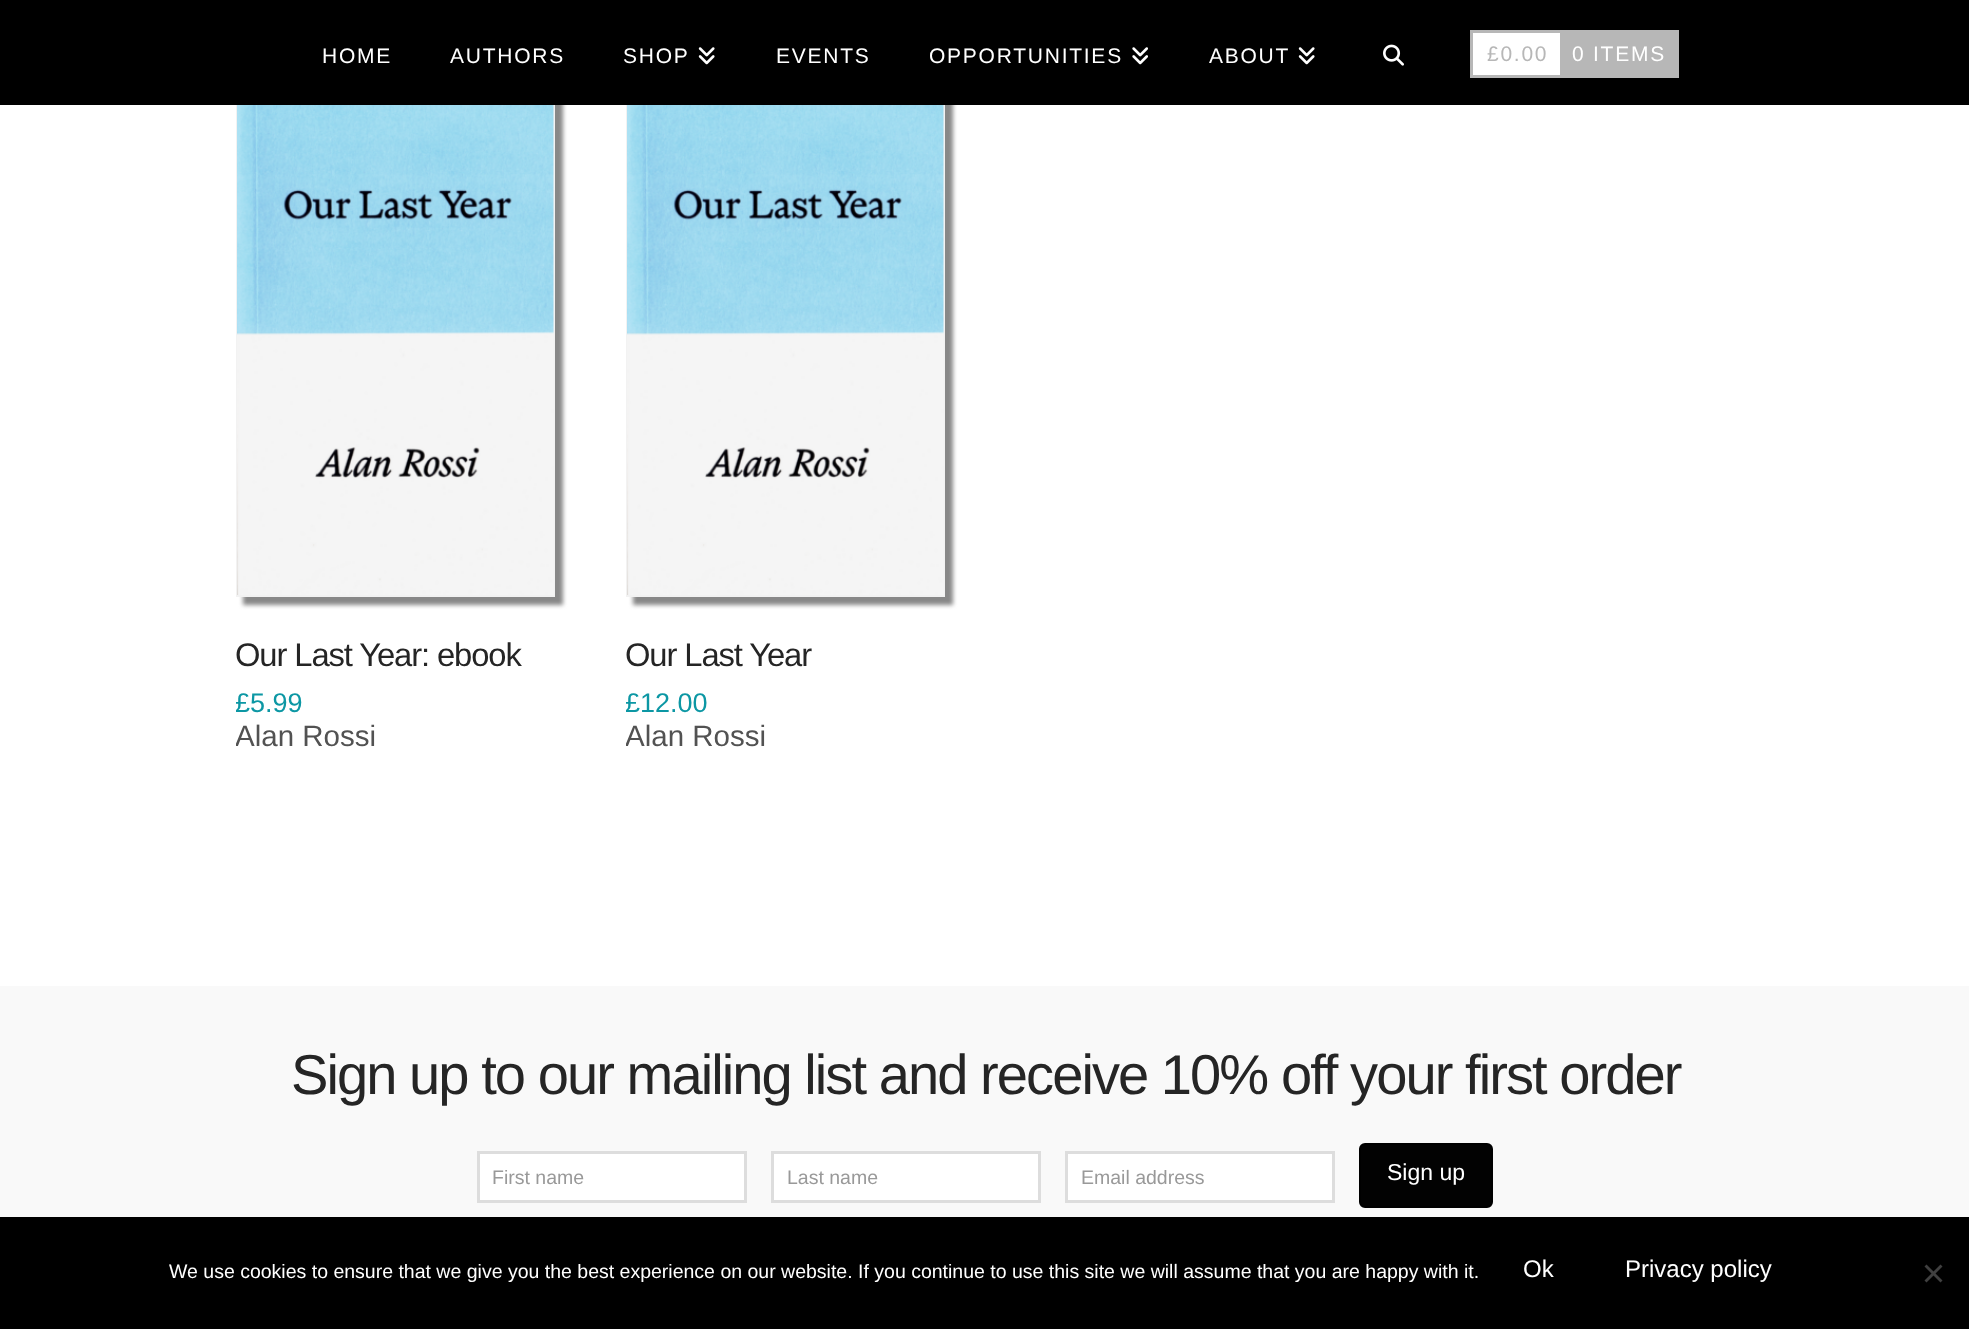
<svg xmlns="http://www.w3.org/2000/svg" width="1969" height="1329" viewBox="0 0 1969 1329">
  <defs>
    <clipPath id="clip1"><path d="M236 86h330v670H236z"/></clipPath>
    <clipPath id="clip2"><path d="M626 86h330v670H626z"/></clipPath>
  </defs>
  <rect width="100%" height="100%" fill="#fff"/>
  <path d="M243 93h320v512H243z" fill="#888" filter="blur(2px)"/>
  <path d="M237 87h317v509H237z" fill="none" stroke="#f2f2f2" stroke-width="2"/>
  <path d="M633 93h320v512H633z" fill="#888" filter="blur(2px)"/>
  <path d="M627 87h317v509H627z" fill="none" stroke="#f2f2f2" stroke-width="2"/>
  <path d="M0 0h1969v105H0z" fill="#000"/>
  <image x="698" y="47" width="17" height="18" href="img/1.png"/>
  <image x="1132" y="47" width="16" height="18" href="img/2.png"/>
  <image x="1298" y="47" width="17" height="18" href="img/1.png"/>
  <image x="1383" y="44" width="21" height="22" href="img/3.png"/>
  <path d="M1473 33h87v42H1473z" fill="#fff"/>
  <path d="M1470 30h209v3H1470z" fill="#b7b7b7"/>
  <path d="M1470 75h209v3H1470z" fill="#b7b7b7"/>
  <path d="M1470 30h3v48H1470z" fill="#b7b7b7"/>
  <path d="M1560 33h119v42H1560z" fill="#b7b7b7"/>
  <image x="237" y="105" width="317" height="490" href="img/4.png"/>
  <image x="627" y="105" width="317" height="490" href="img/4.png"/>
  <path d="M0 986h1969v231H0z" fill="#f9f9f9"/>
  <path d="M478.5 1152.5h267v49H478.5z" fill="#fff" stroke="#ddd" stroke-width="3"/>
  <path d="M772.5 1152.5h267v49H772.5z" fill="#fff" stroke="#ddd" stroke-width="3"/>
  <path d="M1066.5 1152.5h267v49H1066.5z" fill="#fff" stroke="#ddd" stroke-width="3"/>
  <rect x="1360" y="1144" width="132" height="63" rx="5" fill="#020202" stroke="#000" stroke-width="2"/>
  <path d="M0 1217h1969v112H0z" fill="#000"/>
  <path d="M1940.5 1264.5L1942.5 1266.5L1926.5 1282.5L1924.5 1280.5Z" fill="#404040"/>
  <path d="M1924.5 1266.5L1926.5 1264.5L1942.5 1280.5L1940.5 1282.5Z" fill="#404040"/>
  <g font-family="Liberation Sans" font-size="21" letter-spacing="1.75" fill="#fff">
    <text x="322" y="63">HOME</text>
    <text x="450" y="63">AUTHORS</text>
    <text x="623" y="63">SHOP</text>
    <text x="776" y="63">EVENTS</text>
    <text x="929" y="63">OPPORTUNITIES</text>
    <text x="1209" y="63">ABOUT</text>
  </g>
  <text x="1487" y="61" font-family="Liberation Sans" font-size="21" letter-spacing="1.75" fill="#b7b7b7">£0.00</text>
  <text x="1572" y="61" font-family="Liberation Sans" font-size="21" letter-spacing="1.75" fill="#fff">0 ITEMS</text>
  <text x="235" y="666" font-family="Liberation Sans" font-size="32.75" letter-spacing="-1.1" fill="#252525">Our Last Year: ebook</text>
  <g clip-path="url(#clip1)">
    <text x="235" y="712" font-family="Liberation Sans" font-size="27" fill="#0c97a4">£</text>
  </g>
  <text x="250" y="712" font-family="Liberation Sans" font-size="27" fill="#0c97a4">5.99</text>
  <g clip-path="url(#clip1)">
    <text x="235" y="746" font-family="Liberation Sans" font-size="29.5" fill="#525252">Alan Rossi</text>
  </g>
  <text x="625" y="666" font-family="Liberation Sans" font-size="32.75" letter-spacing="-1.1" fill="#252525">Our Last Year</text>
  <g clip-path="url(#clip2)">
    <text x="625" y="712" font-family="Liberation Sans" font-size="27" fill="#0c97a4">£</text>
  </g>
  <text x="640" y="712" font-family="Liberation Sans" font-size="27" fill="#0c97a4">12.00</text>
  <g clip-path="url(#clip2)">
    <text x="625" y="746" font-family="Liberation Sans" font-size="29.5" fill="#525252">Alan Rossi</text>
  </g>
  <text x="291" y="1094" font-family="Liberation Sans" font-size="56.1" letter-spacing="-1.95" fill="#252525">Sign up to our mailing list and receive 10% off your first order</text>
  <g font-family="Liberation Sans" font-size="19.5" fill="#999">
    <text x="492" y="1184">First name</text>
    <text x="787" y="1184">Last name</text>
    <text x="1081" y="1184">Email address</text>
  </g>
  <text x="1387" y="1180" font-family="Liberation Sans" font-size="23" fill="#fff">Sign up</text>
  <text x="169" y="1278" font-family="Liberation Sans" font-size="19.5" fill="#fff">We use cookies to ensure that we give you the best experience on our website. If you continue to use this site we will assume that you are happy with it.</text>
  <g font-family="Liberation Sans" font-size="24" fill="#fff">
    <text x="1523" y="1277">Ok</text>
    <text x="1625" y="1277">Privacy policy</text>
  </g>
</svg>
